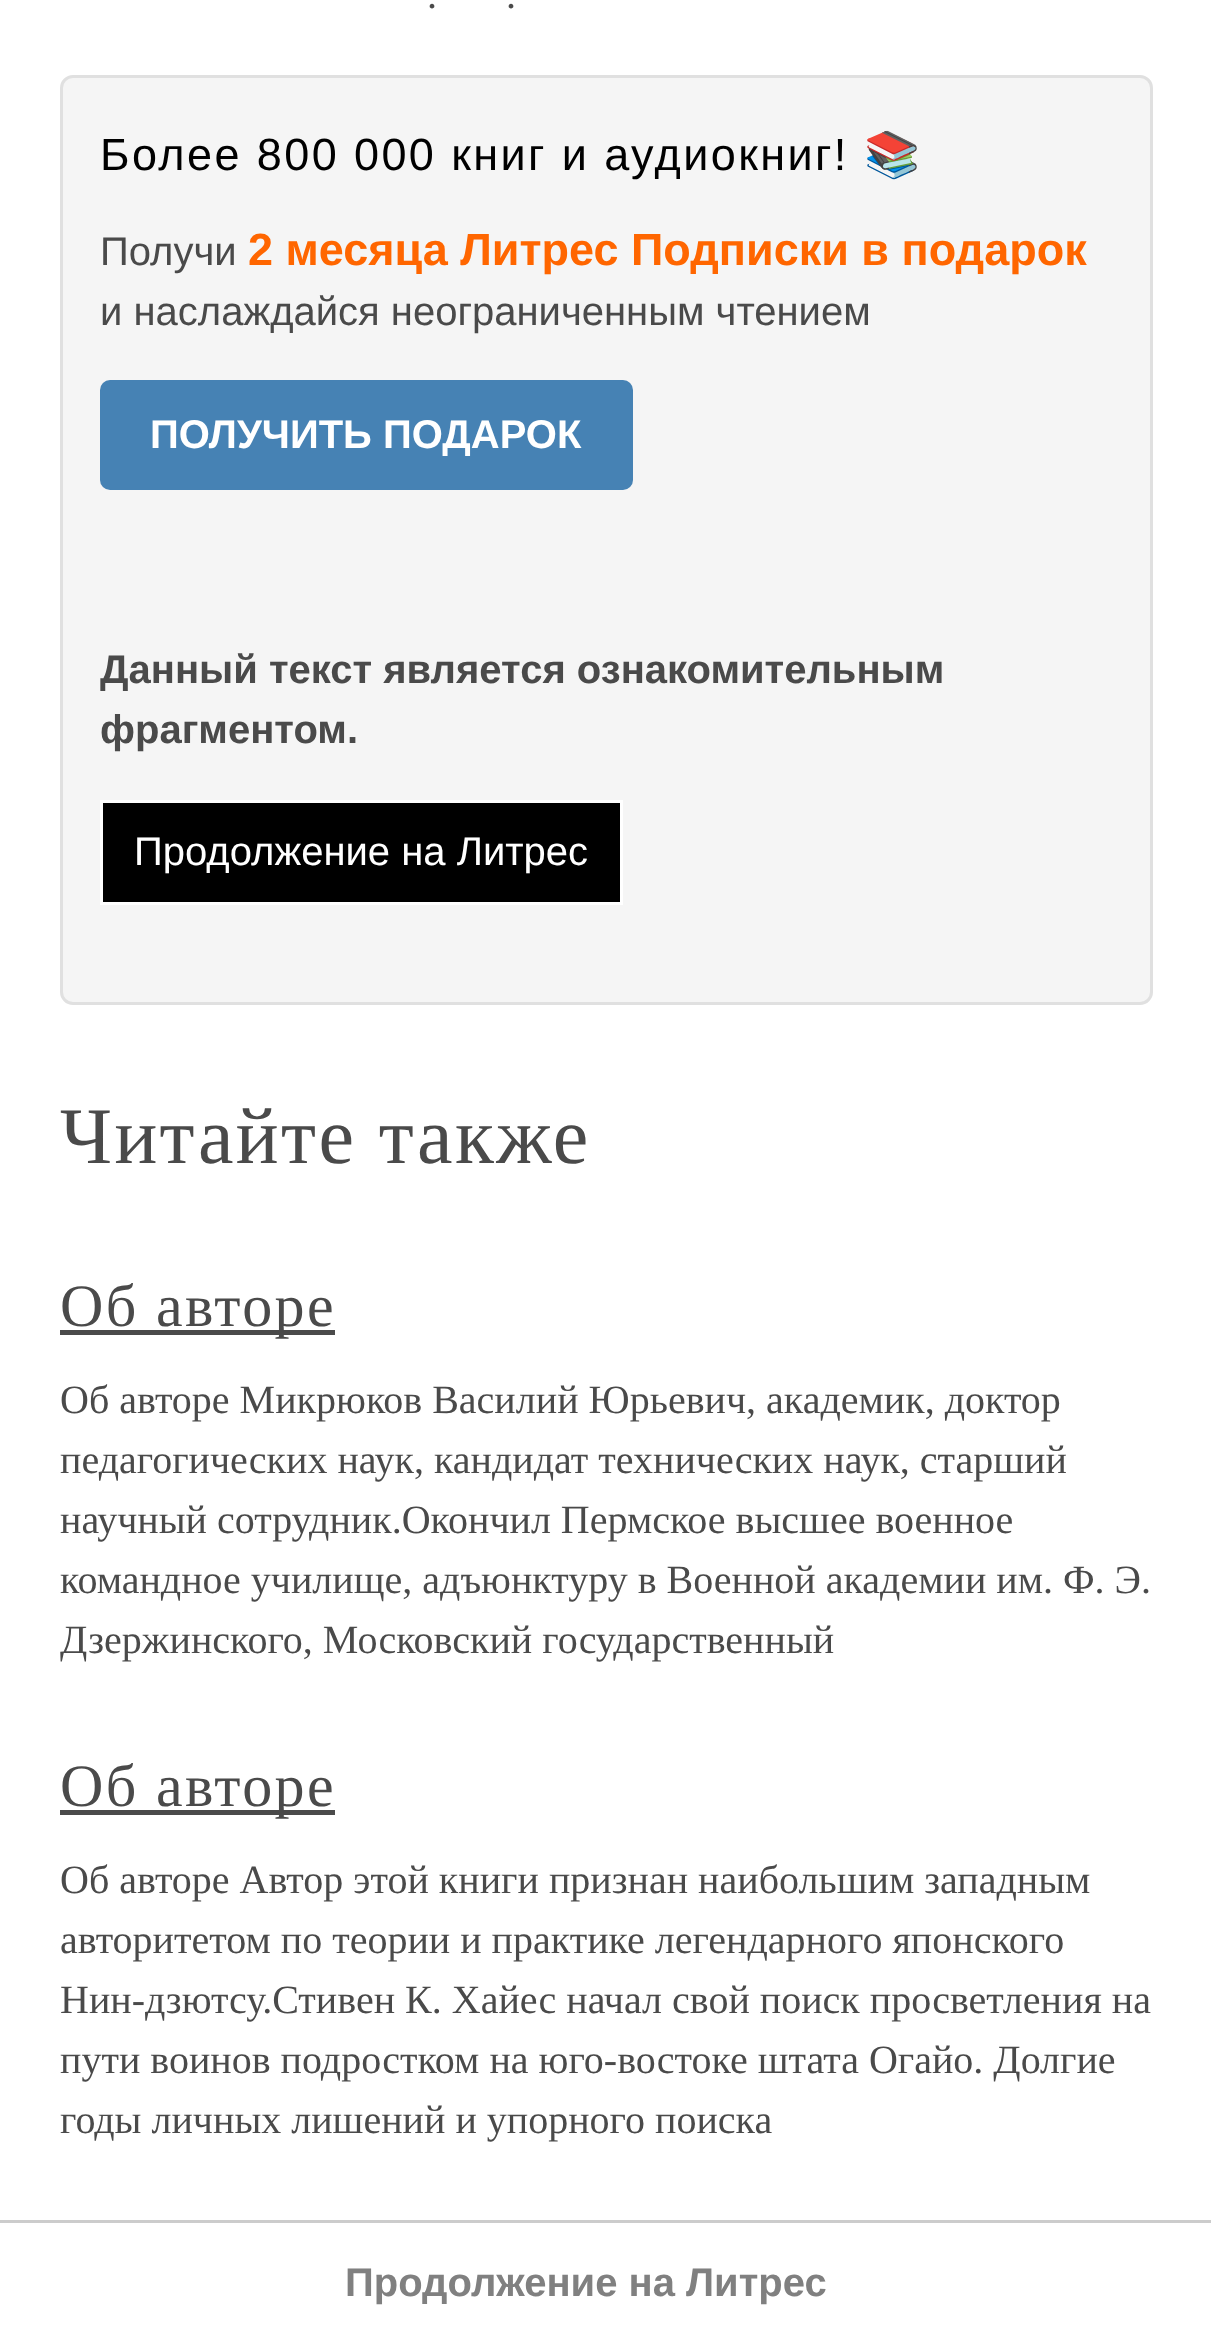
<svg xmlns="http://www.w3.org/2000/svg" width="1211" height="2343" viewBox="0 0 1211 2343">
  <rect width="100%" height="100%" fill="#fff"/>
  <rect x="61.5" y="76.5" width="1090" height="927" rx="11.5" fill="#f5f5f5" stroke="#e0e0e0" stroke-width="3"/>
  <rect x="100" y="380" width="533" height="110" rx="10" fill="#4682b4"/>
  <path d="M101.5 801.5h520v102H101.5z" fill="#000" stroke="#fff" stroke-width="3"/>
  <path d="M60 1330h275v5H60z" fill="#4a4a4a"/>
  <path d="M60 1810h275v5H60z" fill="#4a4a4a"/>
  <path d="M0 2220h1211v3H0z" fill="#ccc"/>
  <g font-family="Liberation Serif" font-size="40" fill="#4a4a4a">
    <text x="427" y="8">.</text>
    <text x="506" y="8">.</text>
  </g>
  <text x="100" y="170" font-family="Liberation Sans" font-size="45" letter-spacing="2.4" fill="#000">Более 800 000 книг и аудиокниг!</text>
  <text x="864" y="170" font-family="Noto Color Emoji" font-size="45" letter-spacing="2.4" fill="#000">📚</text>
  <text x="100" y="265" font-family="Liberation Sans" font-size="40" fill="#4a4a4a">Получи</text>
  <text x="248" y="265" font-family="Liberation Sans" font-size="45" font-weight="bold" fill="#f60">2 месяца Литрес Подписки в подарок</text>
  <text x="100" y="325" font-family="Liberation Sans" font-size="40" fill="#4a4a4a">и наслаждайся неограниченным чтением</text>
  <text x="150" y="448" font-family="Liberation Sans" font-size="40" font-weight="bold" fill="#fff">ПОЛУЧИТЬ ПОДАРОК</text>
  <g font-family="Liberation Sans" font-size="40" font-weight="bold" fill="#4a4a4a">
    <text x="100" y="683">Данный текст является ознакомительным</text>
    <text x="100" y="743">фрагментом.</text>
  </g>
  <text x="134" y="865" font-family="Liberation Sans" font-size="40" fill="#fff">Продолжение на Литрес</text>
  <text x="60" y="1163" font-family="Liberation Serif" font-size="80" letter-spacing="2.4" fill="#4a4a4a">Читайте также</text>
  <text x="60" y="1326" font-family="Liberation Serif" font-size="60" letter-spacing="2.4" fill="#4a4a4a">Об авторе</text>
  <g font-family="Liberation Serif" font-size="40" fill="#4a4a4a">
    <text x="60" y="1413">Об авторе Микрюков Василий Юрьевич, академик, доктор</text>
    <text x="60" y="1473">педагогических наук, кандидат технических наук, старший</text>
    <text x="60" y="1533">научный сотрудник.Окончил Пермское высшее военное</text>
    <text x="60" y="1593">командное училище, адъюнктуру в Военной академии им. Ф. Э.</text>
    <text x="60" y="1653">Дзержинского, Московский государственный</text>
  </g>
  <text x="60" y="1806" font-family="Liberation Serif" font-size="60" letter-spacing="2.4" fill="#4a4a4a">Об авторе</text>
  <g font-family="Liberation Serif" font-size="40" fill="#4a4a4a">
    <text x="60" y="1893">Об авторе Автор этой книги признан наибольшим западным</text>
    <text x="60" y="1953">авторитетом по теории и практике легендарного японского</text>
    <text x="60" y="2013">Нин-дзютсу.Стивен К. Хайес начал свой поиск просветления на</text>
    <text x="60" y="2073">пути воинов подростком на юго-востоке штата Огайо. Долгие</text>
    <text x="60" y="2133">годы личных лишений и упорного поиска</text>
  </g>
  <text x="345" y="2296" font-family="Liberation Sans" font-size="40" font-weight="bold" fill="#808080">Продолжение на Литрес</text>
</svg>
